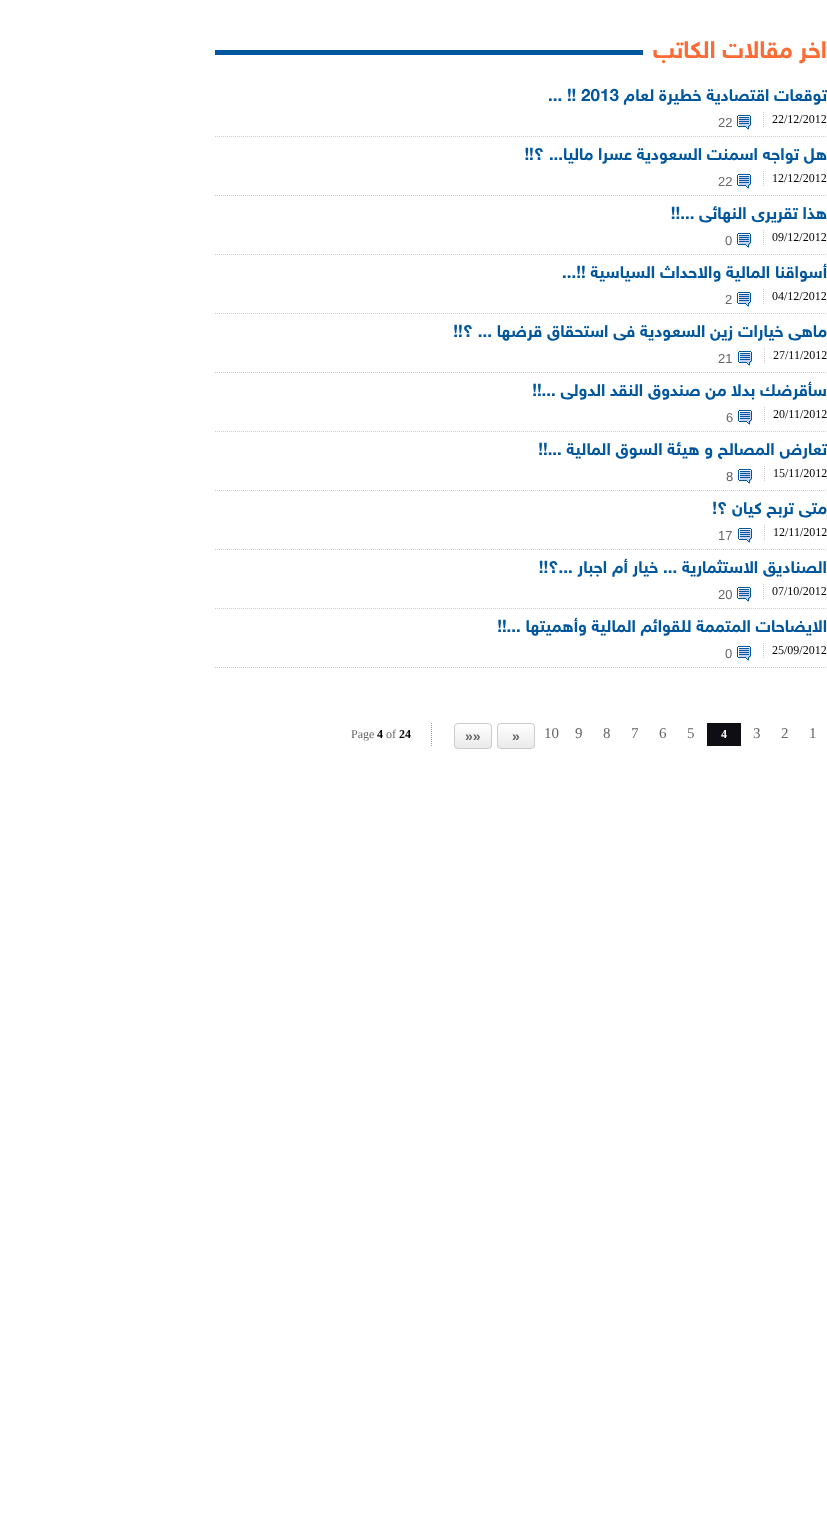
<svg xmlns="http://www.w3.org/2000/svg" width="827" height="1522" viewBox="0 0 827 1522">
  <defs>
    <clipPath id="clip1"><rect x="497" y="723" width="38" height="26" rx="4"/></clipPath>
    <linearGradient id="g1" gradientUnits="userSpaceOnUse" x1="498" y1="724" x2="498" y2="748"><stop offset="0" stop-color="#fff"/><stop offset="1" stop-color="#eaeaea"/></linearGradient>
    <clipPath id="clip2"><rect x="454" y="723" width="38" height="26" rx="4"/></clipPath>
    <linearGradient id="g2" gradientUnits="userSpaceOnUse" x1="455" y1="724" x2="455" y2="748"><stop offset="0" stop-color="#fff"/><stop offset="1" stop-color="#eaeaea"/></linearGradient>
  </defs>
  <rect width="100%" height="100%" fill="#fff"/>
  <path d="M215 50h428v5H215z" fill="#00579e"/>
  <path d="M215 136.5H827" fill="none" stroke="#ccc" stroke-dasharray="1 1"/>
  <path d="M763.5 112V127" fill="none" stroke="#ccc" stroke-dasharray="1 1"/>
  <image x="737" y="115" width="14" height="15" href="img/1.png"/>
  <path d="M215 195.5H827" fill="none" stroke="#ccc" stroke-dasharray="1 1"/>
  <path d="M763.5 171V186" fill="none" stroke="#ccc" stroke-dasharray="1 1"/>
  <image x="737" y="174" width="14" height="15" href="img/1.png"/>
  <path d="M215 254.5H827" fill="none" stroke="#ccc" stroke-dasharray="1 1"/>
  <path d="M763.5 230V245" fill="none" stroke="#ccc" stroke-dasharray="1 1"/>
  <image x="737" y="233" width="14" height="15" href="img/1.png"/>
  <path d="M215 313.5H827" fill="none" stroke="#ccc" stroke-dasharray="1 1"/>
  <path d="M763.5 289V304" fill="none" stroke="#ccc" stroke-dasharray="1 1"/>
  <image x="737" y="292" width="14" height="15" href="img/1.png"/>
  <path d="M215 372.5H827" fill="none" stroke="#ccc" stroke-dasharray="1 1"/>
  <path d="M764.5 348V363" fill="none" stroke="#ccc" stroke-dasharray="1 1"/>
  <image x="738" y="351" width="14" height="15" href="img/1.png"/>
  <path d="M215 431.5H827" fill="none" stroke="#ccc" stroke-dasharray="1 1"/>
  <path d="M764.5 407V422" fill="none" stroke="#ccc" stroke-dasharray="1 1"/>
  <image x="738" y="410" width="14" height="15" href="img/1.png"/>
  <path d="M215 490.5H827" fill="none" stroke="#ccc" stroke-dasharray="1 1"/>
  <path d="M764.5 466V481" fill="none" stroke="#ccc" stroke-dasharray="1 1"/>
  <image x="738" y="469" width="14" height="15" href="img/1.png"/>
  <path d="M215 549.5H827" fill="none" stroke="#ccc" stroke-dasharray="1 1"/>
  <path d="M764.5 525V540" fill="none" stroke="#ccc" stroke-dasharray="1 1"/>
  <image x="738" y="528" width="14" height="15" href="img/1.png"/>
  <path d="M215 608.5H827" fill="none" stroke="#ccc" stroke-dasharray="1 1"/>
  <path d="M763.5 584V599" fill="none" stroke="#ccc" stroke-dasharray="1 1"/>
  <image x="737" y="587" width="14" height="15" href="img/1.png"/>
  <path d="M215 667.5H827" fill="none" stroke="#ccc" stroke-dasharray="1 1"/>
  <path d="M763.5 643V658" fill="none" stroke="#ccc" stroke-dasharray="1 1"/>
  <image x="737" y="646" width="14" height="15" href="img/1.png"/>
  <path d="M707 723h34v23H707z" fill="#0f0e13"/>
  <g clip-path="url(#clip1)">
    <path d="M497 724h38v24H497z" fill="url(#g1)"/>
  </g>
  <rect x="497.5" y="723.5" width="37" height="25" rx="3.5" fill="none" stroke="#ccc"/>
  <g clip-path="url(#clip2)">
    <path d="M454 724h38v24H454z" fill="url(#g2)"/>
  </g>
  <rect x="454.5" y="723.5" width="37" height="25" rx="3.5" fill="none" stroke="#ccc"/>
  <path d="M431.5 723V746" fill="none" stroke="#999" stroke-dasharray="1 1"/>
  <text x="827" y="58" font-family="'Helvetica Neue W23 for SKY'" font-size="24" font-weight="bold" direction="rtl" fill="#fe6a33">اخر مقالات الكاتب</text>
  <text x="827" y="101" font-family="'Helvetica Neue W23 for SKY'" font-size="17" font-weight="bold" direction="rtl" fill="#00579e">توقعات اقتصادية خطيرة لعام</text>
  <text x="548" y="101" font-family="'Helvetica Neue W23 for SKY'" font-size="17" font-weight="bold" fill="#00579e">... !! 2013</text>
  <text x="772" y="123" font-family="Liberation Serif" font-size="12" fill="#000">22/12/2012</text>
  <text x="718" y="127" font-family="Liberation Sans" font-size="13" fill="#666">22</text>
  <text x="827" y="160" font-family="'Helvetica Neue W23 for SKY'" font-size="17" font-weight="bold" direction="rtl" fill="#00579e">هل تواجه اسمنت السعودية عسرا ماليا... ؟!!</text>
  <text x="772" y="182" font-family="Liberation Serif" font-size="12" fill="#000">12/12/2012</text>
  <text x="718" y="186" font-family="Liberation Sans" font-size="13" fill="#666">22</text>
  <text x="827" y="219" font-family="'Helvetica Neue W23 for SKY'" font-size="17" font-weight="bold" direction="rtl" fill="#00579e">هذا تقريرى النهائى ...!!</text>
  <text x="772" y="241" font-family="Liberation Serif" font-size="12" fill="#000">09/12/2012</text>
  <text x="725" y="245" font-family="Liberation Sans" font-size="13" fill="#666">0</text>
  <text x="827" y="278" font-family="'Helvetica Neue W23 for SKY'" font-size="17" font-weight="bold" direction="rtl" fill="#00579e">أسواقنا المالية والاحداث السياسية</text>
  <text x="562" y="278" font-family="'Helvetica Neue W23 for SKY'" font-size="17" font-weight="bold" fill="#00579e">...!!</text>
  <text x="772" y="300" font-family="Liberation Serif" font-size="12" fill="#000">04/12/2012</text>
  <text x="725" y="304" font-family="Liberation Sans" font-size="13" fill="#666">2</text>
  <g font-family="'Helvetica Neue W23 for SKY'" font-size="17" font-weight="bold" direction="rtl" fill="#00579e">
    <text x="827" y="337">ماهى خيارات زين السعودية فى استحقاق قرضها</text>
    <text x="492" y="337">... ؟!!</text>
  </g>
  <text x="773" y="359" font-family="Liberation Serif" font-size="12" fill="#000">27/11/2012</text>
  <text x="718" y="363" font-family="Liberation Sans" font-size="13" fill="#666">21</text>
  <text x="827" y="396" font-family="'Helvetica Neue W23 for SKY'" font-size="17" font-weight="bold" direction="rtl" fill="#00579e">سأقرضك بدلا من صندوق النقد الدولى ...!!</text>
  <text x="773" y="418" font-family="Liberation Serif" font-size="12" fill="#000">20/11/2012</text>
  <text x="726" y="422" font-family="Liberation Sans" font-size="13" fill="#666">6</text>
  <text x="827" y="455" font-family="'Helvetica Neue W23 for SKY'" font-size="17" font-weight="bold" direction="rtl" fill="#00579e">تعارض المصالح و هيئة السوق المالية ...!!</text>
  <text x="773" y="477" font-family="Liberation Serif" font-size="12" fill="#000">15/11/2012</text>
  <text x="726" y="481" font-family="Liberation Sans" font-size="13" fill="#666">8</text>
  <text x="827" y="514" font-family="'Helvetica Neue W23 for SKY'" font-size="17" font-weight="bold" direction="rtl" fill="#00579e">متى تربح كيان ؟!</text>
  <text x="773" y="536" font-family="Liberation Serif" font-size="12" fill="#000">12/11/2012</text>
  <text x="718" y="540" font-family="Liberation Sans" font-size="13" fill="#666">17</text>
  <text x="827" y="573" font-family="'Helvetica Neue W23 for SKY'" font-size="17" font-weight="bold" direction="rtl" fill="#00579e">الصناديق الاستثمارية ... خيار أم اجبار ...؟!!</text>
  <text x="772" y="595" font-family="Liberation Serif" font-size="12" fill="#000">07/10/2012</text>
  <text x="718" y="599" font-family="Liberation Sans" font-size="13" fill="#666">20</text>
  <text x="827" y="632" font-family="'Helvetica Neue W23 for SKY'" font-size="17" font-weight="bold" direction="rtl" fill="#00579e">الايضاحات المتممة للقوائم المالية وأهميتها ...!!</text>
  <text x="772" y="654" font-family="Liberation Serif" font-size="12" fill="#000">25/09/2012</text>
  <text x="725" y="658" font-family="Liberation Sans" font-size="13" fill="#666">0</text>
  <g font-family="Liberation Serif" font-size="15" fill="#666">
    <text x="809" y="738">1</text>
    <text x="781" y="738">2</text>
    <text x="753" y="738">3</text>
  </g>
  <text x="721" y="738" font-family="Liberation Serif" font-size="12" font-weight="bold" fill="#fff">4</text>
  <g font-family="Liberation Serif" font-size="15" fill="#666">
    <text x="687" y="738">5</text>
    <text x="659" y="738">6</text>
    <text x="631" y="738">7</text>
    <text x="603" y="738">8</text>
    <text x="575" y="738">9</text>
    <text x="544" y="738">10</text>
  </g>
  <g font-family="Liberation Sans" font-size="14" font-weight="bold" fill="#666">
    <text x="512" y="741">»</text>
    <text x="465" y="741">»»</text>
  </g>
  <text x="399" y="738" font-family="Liberation Serif" font-size="12" font-weight="bold" fill="#000">24</text>
  <text x="386" y="738" font-family="Liberation Serif" font-size="12" fill="#666">of</text>
  <text x="377" y="738" font-family="Liberation Serif" font-size="12" font-weight="bold" fill="#000">4</text>
  <text x="351" y="738" font-family="Liberation Serif" font-size="12" fill="#666">Page</text>
</svg>
